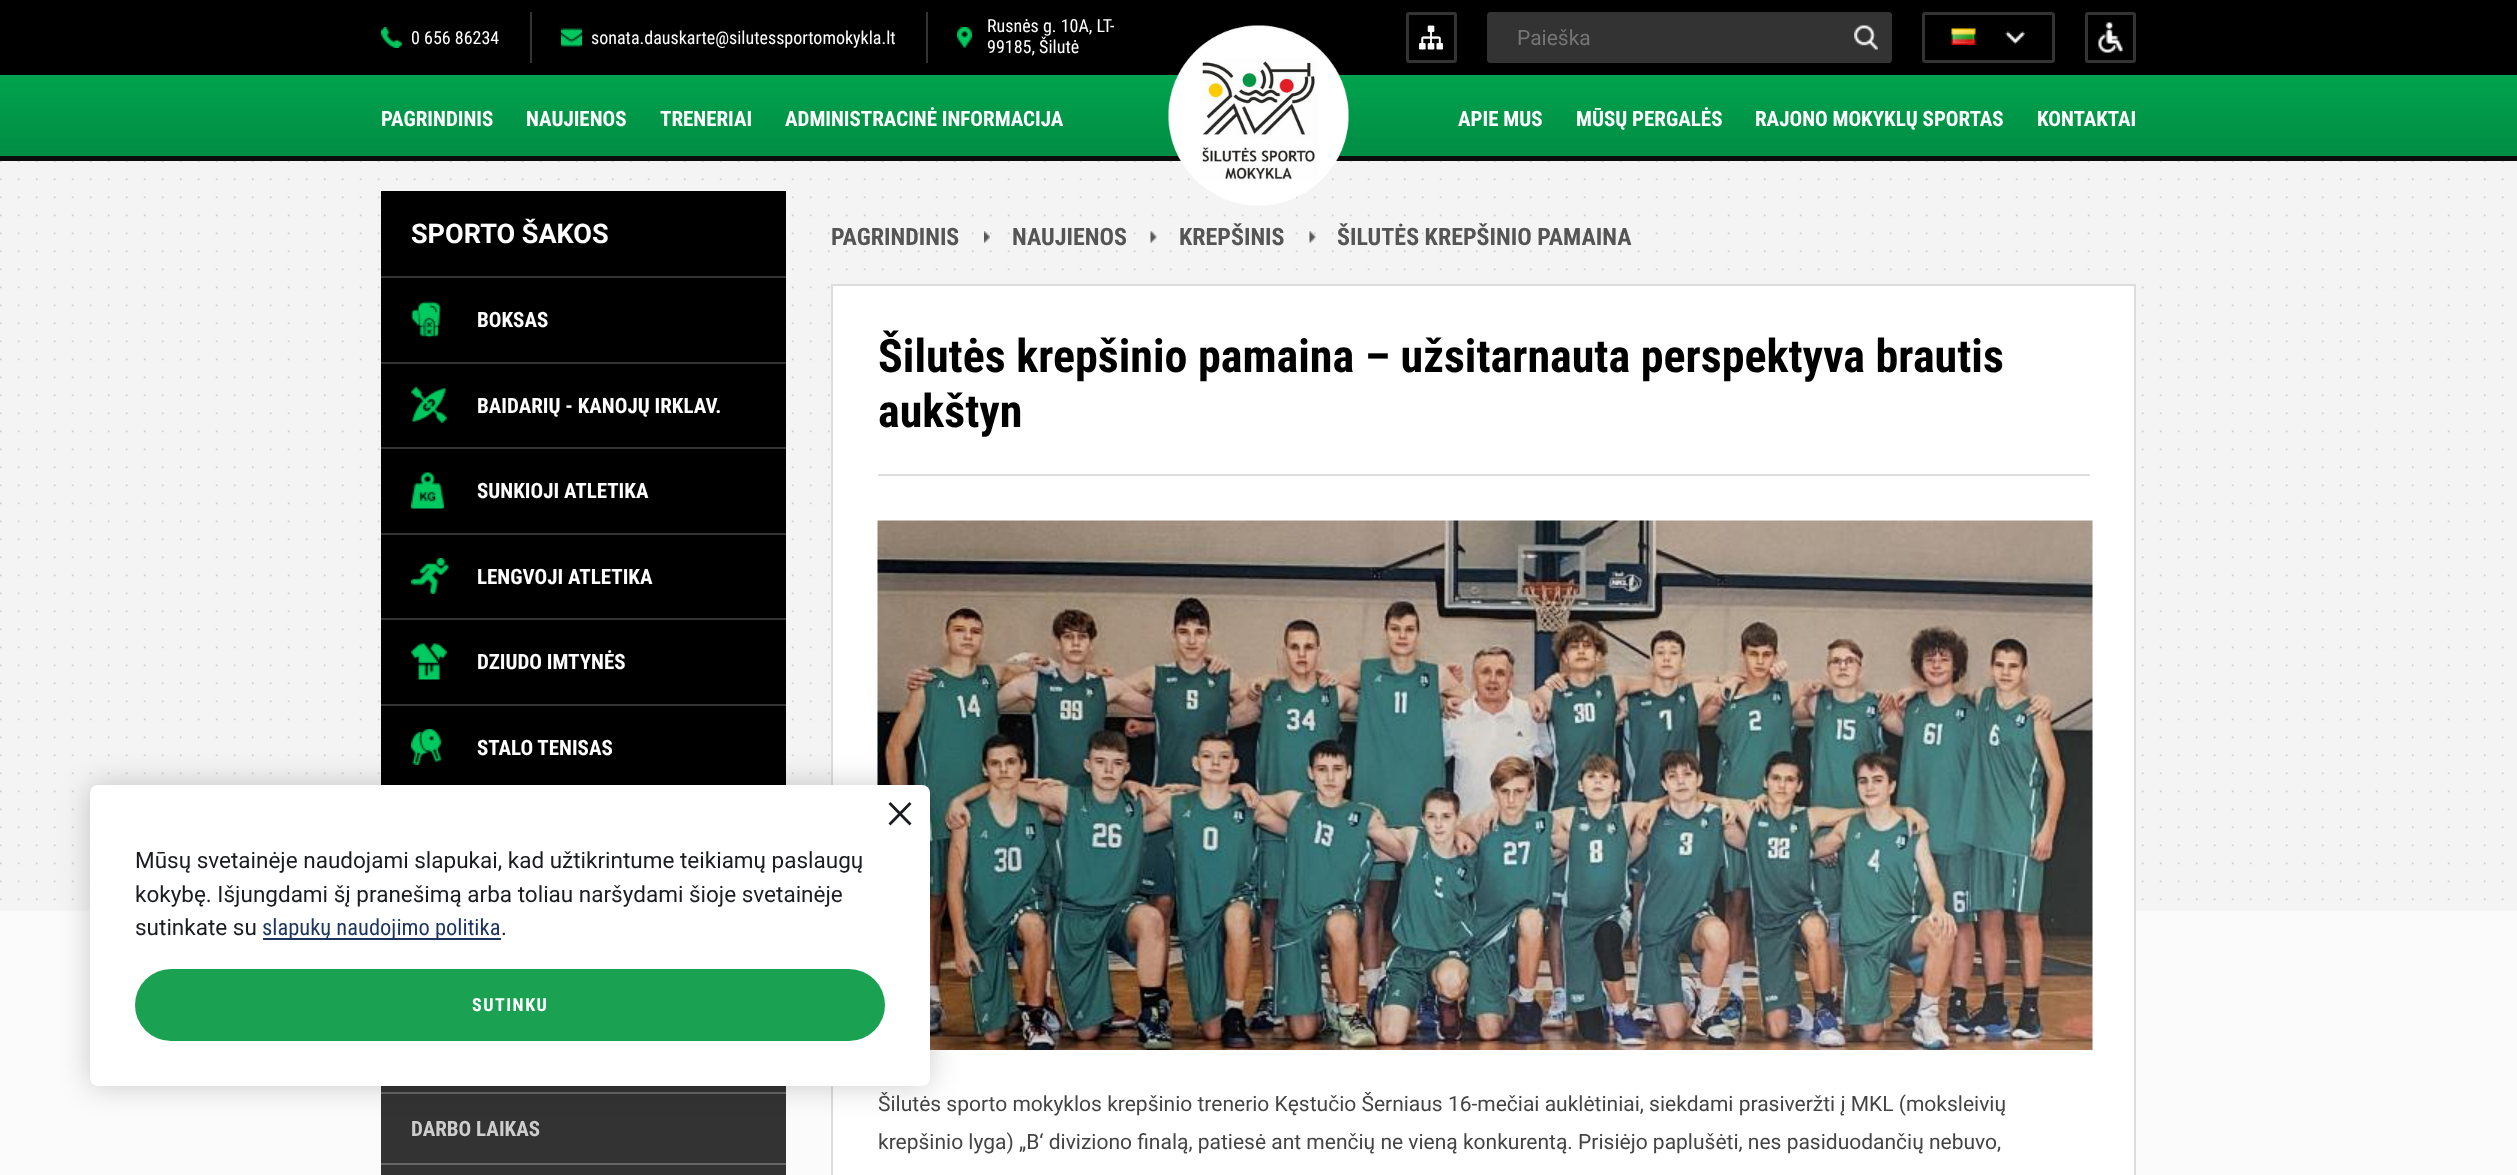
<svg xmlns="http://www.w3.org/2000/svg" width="2517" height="1175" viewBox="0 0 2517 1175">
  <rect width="100%" height="100%" fill="#fbfbfb"/>
  <path d="M0 0h2517v75H0z" fill="#000"/>
  <image x="381" y="27" width="21" height="21" href="img/1.png"/>
  <path d="M530 12h2v51H530z" fill="#333"/>
  <image x="561" y="28" width="21" height="19" href="img/2.png"/>
  <path d="M926 12h2v51H926z" fill="#333"/>
  <image x="957" y="27" width="15" height="21" href="img/3.png"/>
  <image x="1419" y="25" width="24" height="25" href="img/4.png"/>
  <rect x="1407.5" y="13.5" width="48" height="48" rx="1.5" fill="none" stroke="#333" stroke-width="3"/>
  <path d="M1490 12H1841V63H1490C1488.5 63 1487 61.5 1487 60V15C1487 13.5 1488.5 12 1490 12Z" fill="#333"/>
  <path d="M1841 12H1889C1890.5 12 1892 13.5 1892 15V60C1892 61.5 1890.5 63 1889 63H1841Z" fill="#333"/>
  <image x="1854" y="25" width="24" height="25" href="img/5.png"/>
  <rect x="1923.5" y="13.5" width="130" height="48" rx="1.5" fill="none" stroke="#333" stroke-width="3"/>
  <image x="2005" y="31" width="20" height="13" href="img/6.png"/>
  <image x="1951" y="28" width="25" height="17" href="img/7.png"/>
  <image x="2098" y="22" width="25" height="31" href="img/8.png"/>
  <rect x="2086.5" y="13.5" width="48" height="48" rx="1.5" fill="none" stroke="#333" stroke-width="3"/>
  <path d="M0 156h2517v5H0z" fill="#0b0c0c"/>
  <image x="0" y="75" width="2517" height="81" href="img/10.png"/>
  <image x="0" y="161" width="2517" height="750" href="img/11.png"/>
  <image x="1168" y="25" width="181" height="181" href="img/9.png"/>
  <path d="M381 191h405v594H381z" fill="#000"/>
  <path d="M381 276h405v2H381z" fill="#333"/>
  <path d="M381 362h405v2H381z" fill="#333"/>
  <image x="411" y="301" width="30" height="37" href="img/12.png"/>
  <path d="M381 447h405v2H381z" fill="#333"/>
  <image x="411" y="387" width="36" height="36" href="img/13.png"/>
  <path d="M381 533h405v2H381z" fill="#333"/>
  <image x="411" y="472" width="33" height="37" href="img/14.png"/>
  <path d="M381 618h405v2H381z" fill="#333"/>
  <image x="411" y="558" width="38" height="36" href="img/15.png"/>
  <path d="M381 704h405v2H381z" fill="#333"/>
  <image x="411" y="643" width="36" height="37" href="img/16.png"/>
  <image x="411" y="729" width="30" height="36" href="img/17.png"/>
  <path d="M381 1086h405v89H381z" fill="#333"/>
  <path d="M381 1092h405v2H381z" fill="#666"/>
  <path d="M381 1163h405v2H381z" fill="#666"/>
  <image x="984" y="231" width="6" height="12" href="img/18.png"/>
  <image x="1150" y="231" width="7" height="12" href="img/19.png"/>
  <image x="1309" y="231" width="7" height="12" href="img/20.png"/>
  <path d="M832 285h1303v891H832z" fill="#fff" stroke="#ddd" stroke-width="2"/>
  <path d="M878 474h1212v2H878z" fill="#ddd"/>
  <image x="877" y="520" width="1216" height="530" href="img/21.png"/>
  <rect x="90" y="785" width="840" height="301" rx="8" fill="#00000033" filter="blur(15px)"/>
  <rect x="90" y="785" width="840" height="301" rx="8" fill="#fff"/>
  <path d="M890.5 802L911.5 823.5L909.5 825.5L888.5 804Z" fill="#1a1c20"/>
  <path d="M909.5 802L911.5 804L890.5 825.5L888.5 823.5Z" fill="#1a1c20"/>
  <path d="M263 938h238v2H263z" fill="#1d355e"/>
  <rect x="135" y="969" width="750" height="72" rx="36" fill="#1aa152"/>
  <g font-family="Roboto Condensed" font-size="18" fill="#fff">
    <text x="411" y="44">0 656 86234</text>
    <text x="591" y="44">sonata.dauskarte@silutessportomokykla.lt</text>
    <text x="987" y="32">Rusnės g. 10A, LT-</text>
    <text x="987" y="53">99185, Šilutė</text>
  </g>
  <text x="1517" y="45" font-family="Roboto" font-size="21" fill="#757575">Paieška</text>
  <g font-family="Roboto Condensed" font-size="21" font-weight="bold" fill="#fff">
    <text x="381" y="126">PAGRINDINIS</text>
    <text x="526" y="126">NAUJIENOS</text>
    <text x="660" y="126">TRENERIAI</text>
    <text x="785" y="126">ADMINISTRACINĖ INFORMACIJA</text>
    <text x="1458" y="126">APIE MUS</text>
    <text x="1576" y="126">MŪSŲ PERGALĖS</text>
    <text x="1755" y="126">RAJONO MOKYKLŲ SPORTAS</text>
    <text x="2037" y="126">KONTAKTAI</text>
  </g>
  <text x="411" y="243" font-family="Roboto" font-size="27" font-weight="bold" fill="#fff">SPORTO ŠAKOS</text>
  <g font-family="Roboto Condensed" font-size="21" font-weight="bold" fill="#fff">
    <text x="477" y="327">BOKSAS</text>
    <text x="477" y="413">BAIDARIŲ - KANOJŲ IRKLAV.</text>
    <text x="477" y="498">SUNKIOJI ATLETIKA</text>
    <text x="477" y="584">LENGVOJI ATLETIKA</text>
    <text x="477" y="669">DZIUDO IMTYNĖS</text>
    <text x="477" y="755">STALO TENISAS</text>
  </g>
  <text x="411" y="1136" font-family="Roboto Condensed" font-size="21" font-weight="bold" fill="#cdcdcd">DARBO LAIKAS</text>
  <g font-family="Roboto Condensed" font-size="24" font-weight="bold" fill="#555">
    <text x="831" y="245">PAGRINDINIS</text>
    <text x="1012" y="245">NAUJIENOS</text>
    <text x="1179" y="245">KREPŠINIS</text>
    <text x="1337" y="245">ŠILUTĖS KREPŠINIO PAMAINA</text>
  </g>
  <g font-family="Roboto Condensed" font-size="46" font-weight="bold" fill="#000">
    <text x="878" y="372">Šilutės krepšinio pamaina – užsitarnauta perspektyva brautis</text>
    <text x="878" y="427">aukštyn</text>
  </g>
  <g font-family="Roboto" font-size="21" fill="#444">
    <text x="878" y="1111">Šilutės sporto mokyklos krepšinio trenerio Kęstučio Šerniaus 16-mečiai auklėtiniai, siekdami prasiveržti į MKL (moksleivių</text>
    <text x="878" y="1149">krepšinio lyga) „B‘ diviziono finalą, patiesė ant menčių ne vieną konkurentą. Prisiėjo paplušėti, nes pasiduodančių nebuvo,</text>
  </g>
  <g font-family="Roboto" font-size="22.5" fill="#1a1c20">
    <text x="135" y="868">Mūsų svetainėje naudojami slapukai, kad užtikrintume teikiamų paslaugų</text>
    <text x="135" y="902">kokybę. Išjungdami šį pranešimą arba toliau naršydami šioje svetainėje</text>
    <text x="135" y="935">sutinkate su</text>
  </g>
  <text x="262" y="935" font-family="Roboto Condensed" font-size="22.5" fill="#1d355e">slapukų naudojimo politika</text>
  <text x="501" y="935" font-family="Roboto" font-size="22.5" fill="#1a1c20">.</text>
  <text x="472" y="1011" font-family="Roboto Condensed" font-size="18" font-weight="bold" letter-spacing="1.5" fill="#fff">SUTINKU</text>
</svg>
